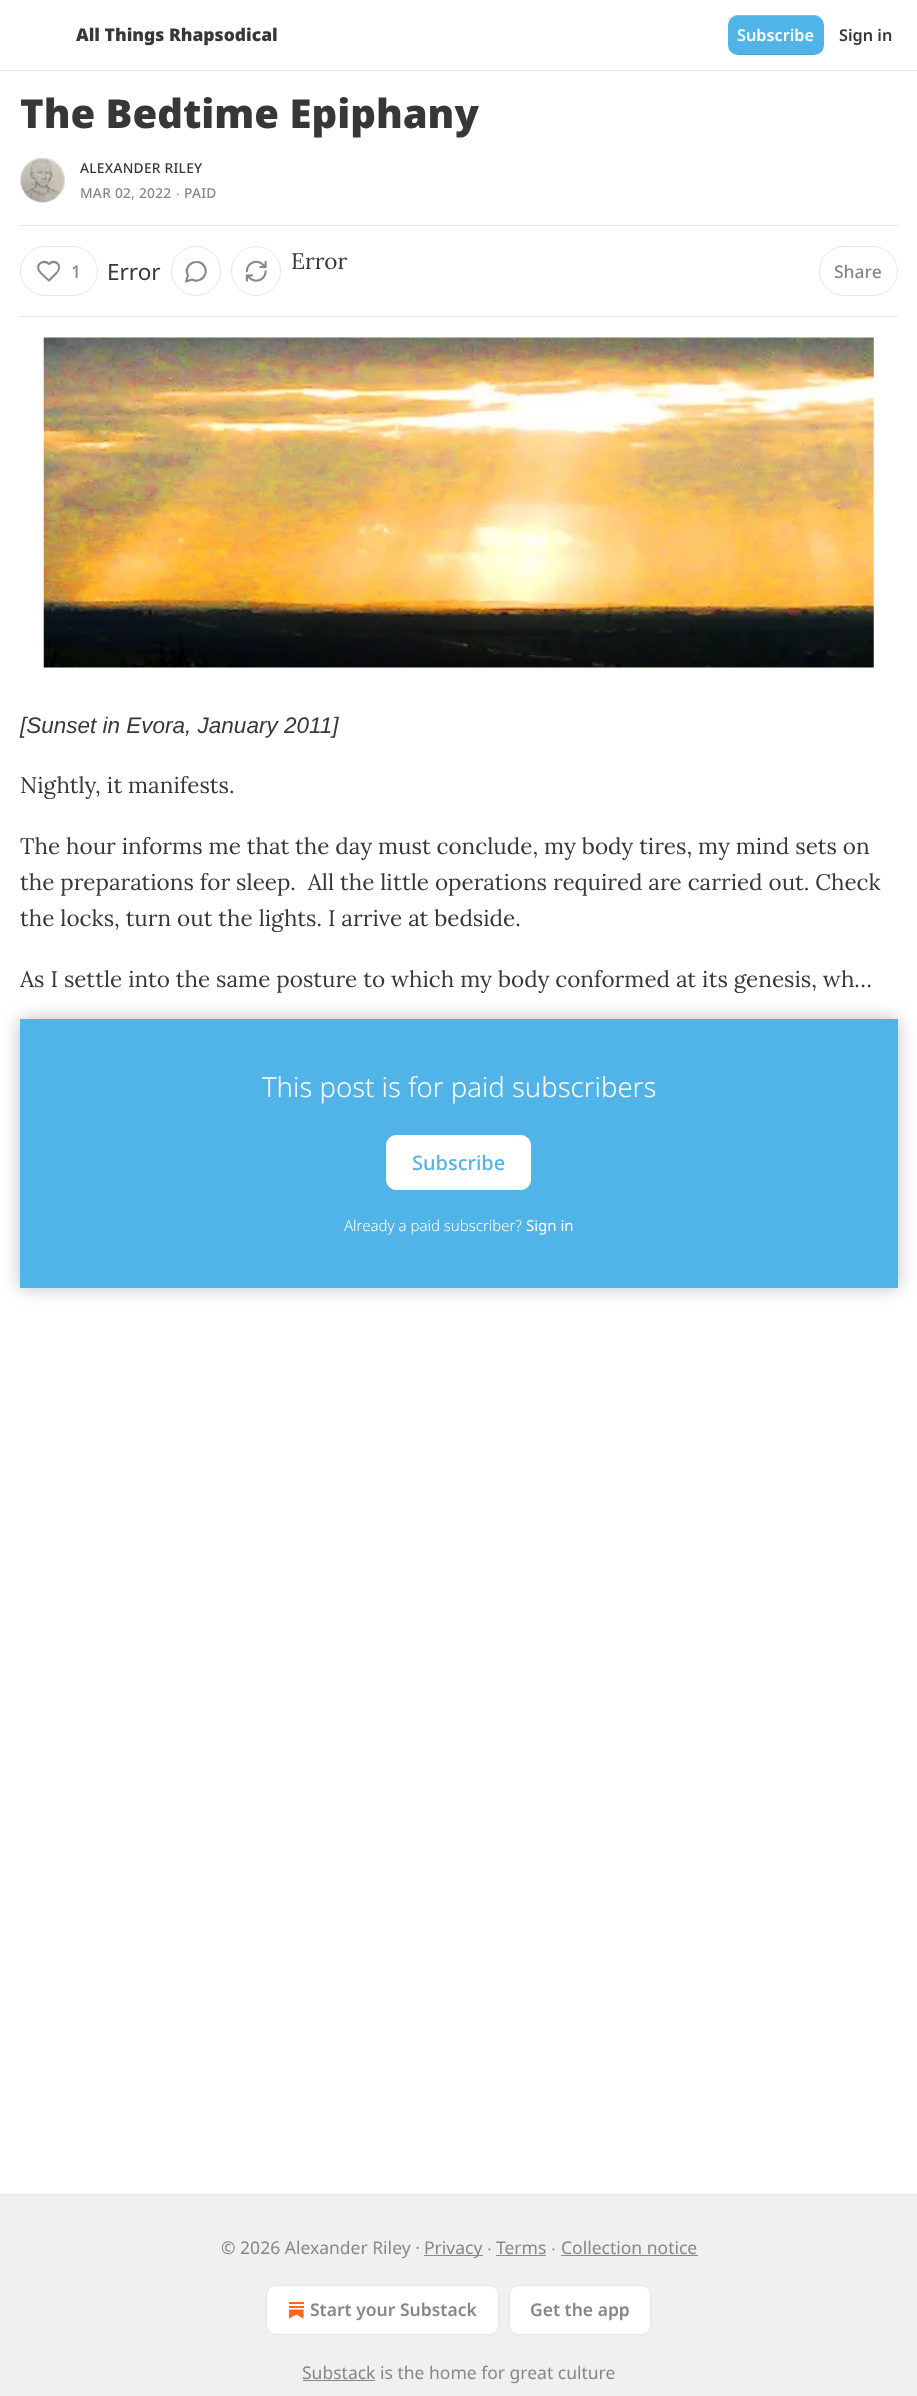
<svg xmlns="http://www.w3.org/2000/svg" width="917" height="2396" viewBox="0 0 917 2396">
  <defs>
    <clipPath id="clip1"><path d="M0 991H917V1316H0ZM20 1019H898V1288H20Z" clip-rule="evenodd"/></clipPath>
  </defs>
  <rect width="100%" height="100%" fill="#fff"/>
  <path d="M0 70h917v1H0z" fill="#e6e6e6"/>
  <rect x="728" y="15" width="96" height="40" rx="10" fill="#51b4e9"/>
  <path d="M728 44C728 57 741 55 751 55H801C811 55 824 57 824 44C824 49 819 54 814 54H738C732 54 728 49 728 44Z" fill="#0000001a"/>
  <path d="M738 16H814C819 16 824 21 824 26C824 13 811 15 801 15H751C741 15 728 13 728 26C728 21 732 16 738 16Z" fill="#ffffff33"/>
  <circle cx="42.5" cy="180.5" r="22" fill="none" stroke="#e6e6e6"/>
  <image x="20" y="157" width="45" height="46" href="img/1.png"/>
  <circle cx="42.5" cy="180.5" r="22" fill="none" stroke="#e6e6e6"/>
  <path d="M20 225h878v1H20z" fill="#e6e6e6"/>
  <path d="M20 316h878v1H20z" fill="#e6e6e6"/>
  <rect x="20.5" y="246.5" width="77" height="49" rx="24.5" fill="none" stroke="#e6e6e6"/>
  <path d="M56 273.5C64 266 55 258 49 264C44.5 259.5 36.5 263 38.5 269.5C39.5 272.5 46 278 49 280.5Z" fill="none" stroke="#868787" stroke-width="2.1" stroke-linecap="round" stroke-linejoin="round"/>
  <circle cx="196" cy="271" r="24.5" fill="none" stroke="#e6e6e6"/>
  <path d="M192 279.5C196.5 282 202.5 280 204.5 275.5C206 273 206 270 205 267.5C199.5 256 182 264.5 188 275.5L186 281.5Z" fill="none" stroke="#868787" stroke-width="2.1" stroke-linecap="round" stroke-linejoin="round"/>
  <circle cx="256" cy="271" r="24.5" fill="none" stroke="#e6e6e6"/>
  <image x="245" y="260" width="22" height="22" href="img/2.png"/>
  <rect x="819.5" y="246.5" width="78" height="49" rx="24.5" fill="none" stroke="#e6e6e6"/>
  <image x="43" y="337" width="831" height="331" href="img/3.png"/>
  <path d="M20 1019h878v269H20z" fill="#51b4e9"/>
  <rect x="386.5" y="1135.5" width="144" height="54" rx="9.5" fill="#fff" stroke="#fff"/>
  <g clip-path="url(#clip1)">
    <path d="M20 1019h878v269H20z" fill="#00000040" filter="blur(9px)"/>
  </g>
  <path d="M0 2195h917v201H0z" fill="#f0f0f0"/>
  <path d="M0 2194h917v1H0z" fill="#e6e6e6"/>
  <path d="M424 2255h59v1H424z" fill="#868787"/>
  <path d="M496 2255h50v1H496z" fill="#868787"/>
  <path d="M561 2255h137v1H561z" fill="#868787"/>
  <rect x="266.5" y="2285.5" width="232" height="49" rx="9.5" fill="#fff" stroke="#e6e6e6"/>
  <image x="289" y="2302" width="15" height="17" href="img/4.png"/>
  <rect x="509.5" y="2285.5" width="141" height="49" rx="9.5" fill="#fff" stroke="#e6e6e6"/>
  <path d="M303 2380h72v1H303z" fill="#868787"/>
  <text x="76" y="41" font-family="Noto Sans" font-size="17.5" font-weight="900" fill="#363737">All Things Rhapsodical</text>
  <text x="737" y="41" font-family="Noto Sans" font-size="16.25" font-weight="600" fill="#fff">Subscribe</text>
  <text x="839" y="41" font-family="Noto Sans" font-size="16.25" font-weight="600" fill="#363737">Sign in</text>
  <text x="20" y="128" font-family="Noto Sans" font-size="40" font-weight="900" fill="#363737">The Bedtime Epiphany</text>
  <text x="80" y="173" font-family="Noto Sans" font-size="13.75" font-weight="500" letter-spacing="0.25" fill="#363737">ALEXANDER RILEY</text>
  <text x="80" y="198" font-family="Noto Sans" font-size="13.75" font-weight="500" letter-spacing="0.25" fill="#868787">MAR 02, 2022</text>
  <text x="176" y="198" font-family="Liberation Sans" font-size="13.75" letter-spacing="0.25" fill="#868787">∙</text>
  <text x="184" y="198" font-family="Noto Sans" font-size="13.75" font-weight="500" letter-spacing="0.25" fill="#868787">PAID</text>
  <text x="71" y="278" font-family="Noto Sans" font-size="17.5" font-weight="500" fill="#868787">1</text>
  <text x="107" y="280" font-family="Noto Sans" font-size="22.5" fill="#363737">Error</text>
  <text x="291" y="269" font-family="Lora" font-size="22.5" fill="#363737">Error</text>
  <text x="834" y="278" font-family="Noto Sans" font-size="17.5" font-weight="500" fill="#868787">Share</text>
  <text x="20" y="733" font-family="Liberation Sans" font-size="22.5" font-style="italic" fill="#363737">[Sunset in Evora, January 2011]</text>
  <g font-family="Lora" font-size="22.5" fill="#363737">
    <text x="20" y="793">Nightly, it manifests.</text>
    <text x="20" y="854">The hour informs me that the day must conclude, my body tires, my mind sets on</text>
    <text x="20" y="890" xml:space="preserve">the preparations for sleep.  All the little operations required are carried out. Check</text>
    <text x="20" y="926">the locks, turn out the lights. I arrive at bedside.</text>
    <text x="20" y="987">As I settle into the same posture to which my body conformed at its genesis, wh…</text>
  </g>
  <text x="262" y="1097" font-family="Noto Sans" font-size="27.5" font-weight="300" fill="#fff">This post is for paid subscribers</text>
  <text x="412" y="1170" font-family="Noto Sans" font-size="20" font-weight="500" fill="#51b4e9">Subscribe</text>
  <text x="344" y="1231" font-family="Noto Sans" font-size="15" font-weight="300" fill="#fff">Already a paid subscriber?</text>
  <text x="526" y="1231" font-family="Noto Sans" font-size="15" fill="#fff">Sign in</text>
  <g font-family="Noto Sans" font-size="17.5" fill="#868787">
    <text x="221" y="2254">© 2026 Alexander Riley ·</text>
    <text x="424" y="2254">Privacy</text>
  </g>
  <text x="487" y="2254" font-family="Liberation Sans" font-size="17.5" fill="#868787">∙</text>
  <text x="496" y="2254" font-family="Noto Sans" font-size="17.5" fill="#868787">Terms</text>
  <text x="551" y="2254" font-family="Liberation Sans" font-size="17.5" fill="#868787">∙</text>
  <text x="561" y="2254" font-family="Noto Sans" font-size="17.5" fill="#868787">Collection notice</text>
  <g font-family="Noto Sans" font-size="17.5" font-weight="600" fill="#868787">
    <text x="310" y="2316">Start your Substack</text>
    <text x="530" y="2316">Get the app</text>
  </g>
  <text x="302" y="2379" font-family="Noto Sans" font-size="17.5" fill="#868787">Substack is the home for great culture</text>
</svg>
